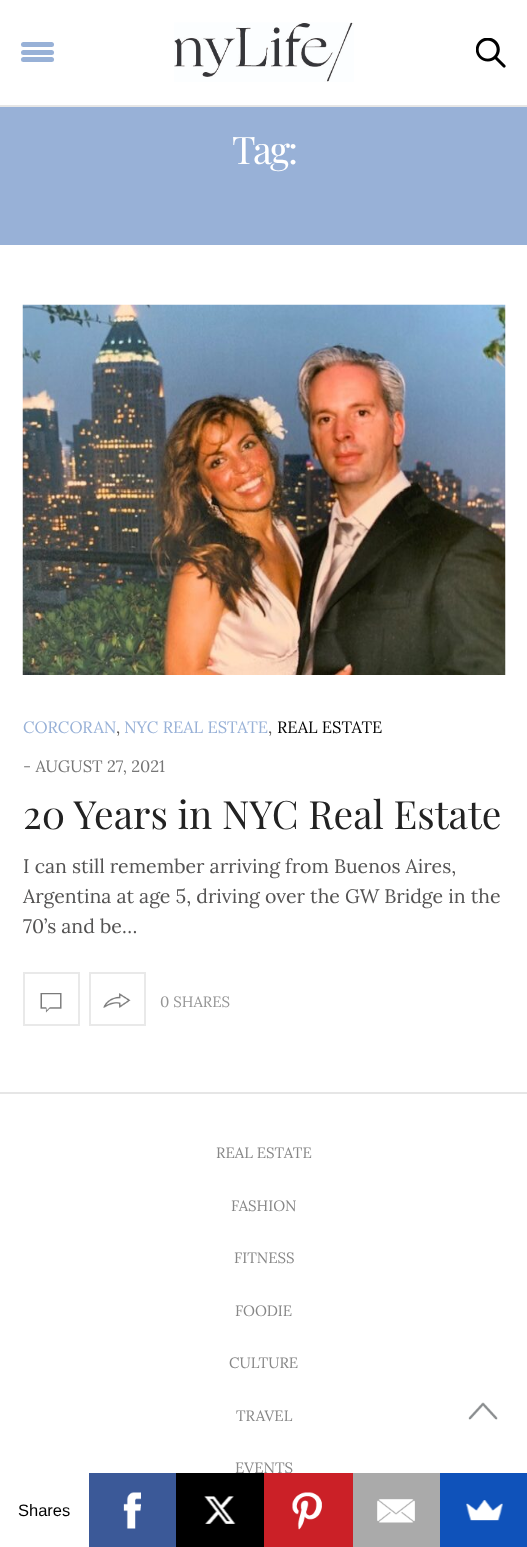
<svg xmlns="http://www.w3.org/2000/svg" width="527" height="1547" viewBox="0 0 527 1547">
  <rect width="100%" height="100%" fill="#fff"/>
  <path d="M0 105h527v2H0z" fill="#e6e6e6"/>
  <rect x="21" y="42" width="33" height="5" rx="2.5" fill="#98b1d7"/>
  <rect x="21" y="50" width="33" height="5" rx="2.5" fill="#98b1d7"/>
  <rect x="21" y="57" width="33" height="5" rx="2.5" fill="#98b1d7"/>
  <image x="174" y="22" width="180" height="60" href="img/1.png"/>
  <image x="476" y="38" width="30" height="30" href="img/2.png"/>
  <path d="M0 107h527v138H0z" fill="#98b1d7"/>
  <image x="22" y="304" width="484" height="371" href="img/3.png"/>
  <path d="M24 973h55v52H24z" fill="none" stroke="#e9e9e9" stroke-width="2"/>
  <image x="40" y="993" width="22" height="20" href="img/4.png"/>
  <path d="M90 973h55v52H90z" fill="none" stroke="#e9e9e9" stroke-width="2"/>
  <image x="103" y="993" width="28" height="15" href="img/5.png"/>
  <path d="M0 1092h527v2H0z" fill="#e6e6e6"/>
  <image x="468" y="1402" width="30" height="18" href="img/6.png"/>
  <path d="M89 1473h87v74H89z" fill="#3b5998"/>
  <image x="123" y="1492" width="18" height="37" href="img/7.png"/>
  <path d="M353 1473h87v74H353z" fill="#aaa"/>
  <image x="377" y="1499" width="38" height="24" href="img/10.png"/>
  <path d="M440 1473h87v74H440z" fill="#0f52ba"/>
  <image x="466" y="1500" width="37" height="21" href="img/11.png"/>
  <text x="232" y="164" font-family="Playfair Display" font-size="38" letter-spacing="-2" fill="#fff">Tag:</text>
  <text x="23" y="733" font-family="Lora" font-size="16.5" fill="#98b1d7">CORCORAN</text>
  <text x="116" y="733" font-family="Lora" font-size="16.5" fill="#545353">,</text>
  <text x="124" y="733" font-family="Lora" font-size="16.5" fill="#98b1d7">NYC REAL ESTATE</text>
  <text x="268" y="733" font-family="Lora" font-size="16.5" fill="#545353">,</text>
  <text x="277" y="733" font-family="Lora" font-size="16.5" fill="#000">REAL ESTATE</text>
  <text x="23" y="772" font-family="Lora" font-size="16.5" fill="#767676">- AUGUST 27, 2021</text>
  <text x="23" y="829" font-family="Playfair Display" font-size="39" fill="#222">20 Years in NYC Real Estate</text>
  <g font-family="Lora" font-size="19.5" fill="#545353">
    <text x="23" y="873">I can still remember arriving from Buenos Aires,</text>
    <text x="23" y="903">Argentina at age 5, driving over the GW Bridge in the</text>
    <text x="23" y="933">70’s and be…</text>
  </g>
  <text x="160" y="1007" font-family="Lora" font-size="15" fill="#959595">0 SHARES</text>
  <g font-family="Lora" font-size="15" fill="#878787">
    <text x="216" y="1158">REAL ESTATE</text>
    <text x="231" y="1211">FASHION</text>
    <text x="234" y="1263">FITNESS</text>
    <text x="235" y="1316">FOODIE</text>
    <text x="229" y="1368">CULTURE</text>
    <text x="236" y="1421">TRAVEL</text>
    <text x="235" y="1473">EVENTS</text>
  </g>
  <text x="18" y="1516" font-family="Liberation Sans" font-size="16.5" fill="#000">Shares</text>
  <path d="M176 1473h88v74H176z" fill="#000"/>
  <image x="204" y="1496" width="32" height="28" href="img/8.png"/>
  <path d="M264 1473h89v74H264z" fill="#cb2027"/>
  <image x="292" y="1492" width="30" height="38" href="img/9.png"/>
</svg>
